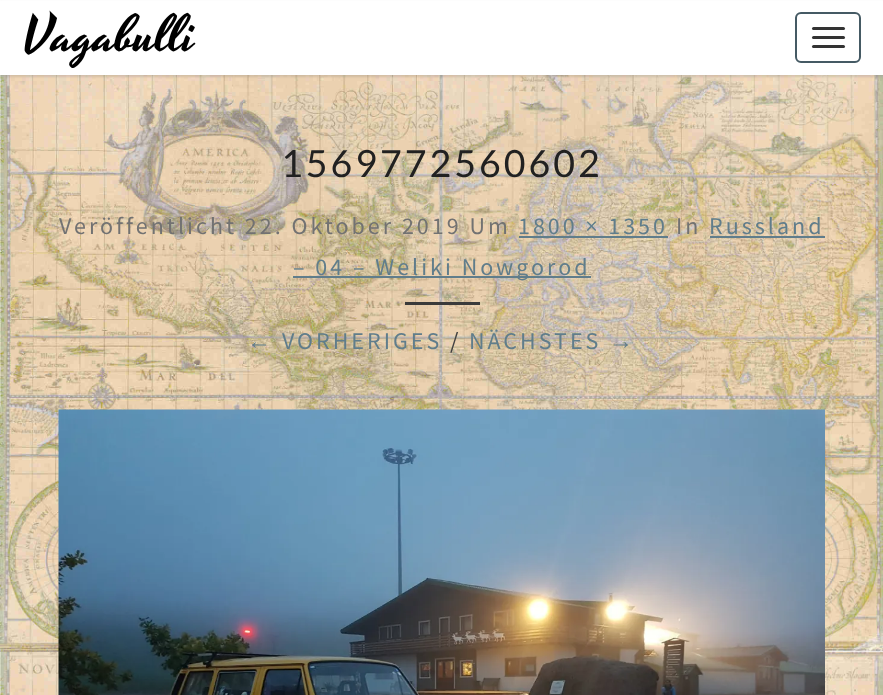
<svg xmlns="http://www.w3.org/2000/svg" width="883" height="695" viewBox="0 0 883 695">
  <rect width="100%" height="100%" fill="#fff"/>
  <image x="0" y="75" width="883" height="620" href="img/1.png"/>
  <path d="M0 2h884v75H0z" fill="#64646433" filter="blur(1px)"/>
  <path d="M0 1h883v74H0z" fill="#fff"/>
  <rect x="796" y="13" width="64" height="49" rx="5" fill="none" stroke="#455a64" stroke-width="2"/>
  <rect x="812" y="27" width="33" height="3" rx="1.5" fill="#333"/>
  <rect x="812" y="36" width="33" height="3" rx="1.5" fill="#333"/>
  <rect x="812" y="45" width="33" height="3" rx="1.5" fill="#333"/>
  <path d="M519 236h149v2H519z" fill="#607d8b"/>
  <path d="M710 236h115v2H710z" fill="#607d8b"/>
  <path d="M293 276h298v2H293z" fill="#607d8b"/>
  <path d="M405 302h75v3H405z" fill="#3a3a3a"/>
  <image x="58" y="409" width="767" height="286" href="img/2.png"/>
  <text x="23" y="50" font-family="Yesteryear" font-size="52.5" fill="#000">Vagabulli</text>
  <text x="281" y="177" font-family="Lato" font-size="37.5" letter-spacing="3" fill="#212121">1569772560602</text>
  <text x="59" y="234" font-family="Source Sans Pro" font-size="24" letter-spacing="3" fill="#727272">Veröffentlicht 22. Oktober 2019 Um</text>
  <text x="518" y="234" font-family="Source Sans Pro" font-size="24" letter-spacing="3" fill="#607d8b">1800 × 1350</text>
  <text x="676" y="234" font-family="Source Sans Pro" font-size="24" letter-spacing="3" fill="#727272">In</text>
  <g font-family="Source Sans Pro" font-size="24" letter-spacing="3" fill="#607d8b">
    <text x="709" y="234">Russland</text>
    <text x="293" y="275">– 04 – Weliki Nowgorod</text>
  </g>
  <text x="247" y="349" font-family="Liberation Sans" font-size="24" letter-spacing="3" fill="#607d8b">←</text>
  <text x="282" y="349" font-family="Source Sans Pro" font-size="24" letter-spacing="3" fill="#607d8b">VORHERIGES</text>
  <text x="450" y="349" font-family="Source Sans Pro" font-size="24" letter-spacing="3" fill="#424242">/</text>
  <text x="469" y="349" font-family="Source Sans Pro" font-size="24" letter-spacing="3" fill="#607d8b">NÄCHSTES</text>
  <text x="609" y="349" font-family="Liberation Sans" font-size="24" letter-spacing="3" fill="#607d8b">→</text>
</svg>
